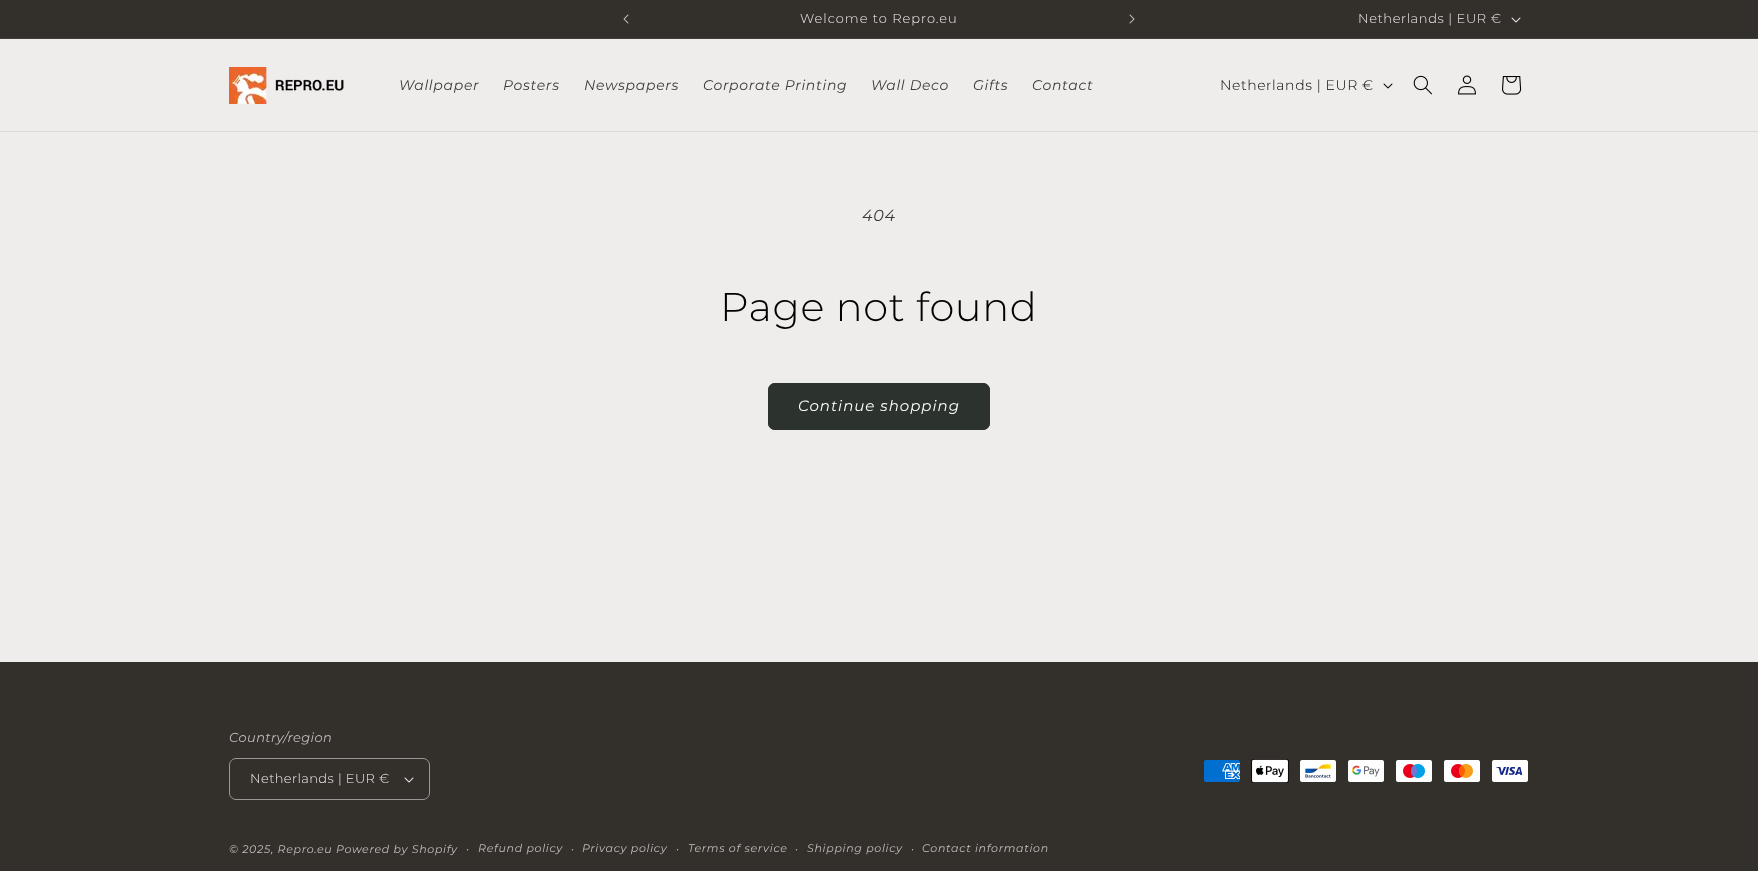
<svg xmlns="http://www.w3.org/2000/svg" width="1758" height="871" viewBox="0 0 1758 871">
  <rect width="100%" height="100%" fill="#efecec"/>
  <path d="M0 0h1758v38H0z" fill="#33302c"/>
  <path d="M0 38h1758v1H0z" fill="#423f3b"/>
  <image x="623" y="14" width="6" height="10" href="img/1.png"/>
  <image x="1129" y="14" width="6" height="10" href="img/2.png"/>
  <image x="1511" y="17" width="10" height="6" href="img/3.png"/>
  <path d="M0 131h1758v1H0z" fill="#dcd9d9"/>
  <image x="229" y="67" width="115" height="37" href="img/4.png"/>
  <image x="1383" y="83" width="10" height="6" href="img/5.png"/>
  <image x="1413" y="75" width="19" height="20" href="img/6.png"/>
  <image x="1458" y="75" width="18" height="20" href="img/7.png"/>
  <image x="1502" y="76" width="20" height="19" href="img/8.png"/>
  <rect x="768" y="383" width="222" height="47" rx="7" fill="#2c332f"/>
  <rect x="768.5" y="383.5" width="221" height="46" rx="6.5" fill="none" stroke="#2c332f"/>
  <path d="M0 662h1758v209H0z" fill="#33302c"/>
  <image x="404" y="777" width="10" height="6" href="img/3.png"/>
  <rect x="229.5" y="758.5" width="200" height="41" rx="6.5" fill="none" stroke="#9a9796"/>
  <image x="1204" y="760" width="36" height="22" href="img/9.png"/>
  <image x="1251" y="759" width="38" height="24" href="img/10.png"/>
  <image x="1300" y="760" width="36" height="22" href="img/11.png"/>
  <image x="1348" y="760" width="36" height="22" href="img/12.png"/>
  <image x="1396" y="760" width="36" height="22" href="img/13.png"/>
  <image x="1444" y="760" width="36" height="22" href="img/14.png"/>
  <image x="1492" y="760" width="36" height="22" href="img/15.png"/>
  <text x="800" y="23" font-family="Montserrat" font-size="13" font-weight="300" letter-spacing="1" fill="#efecec">Welcome to Repro.eu</text>
  <text x="1358" y="23" font-family="Montserrat" font-size="13" font-weight="300" letter-spacing="0.6" fill="#efecec">Netherlands | EUR €</text>
  <g font-family="Montserrat" font-size="14" font-style="italic" letter-spacing="0.7" fill="#3c3b3b">
    <text x="399" y="90">Wallpaper</text>
    <text x="503" y="90">Posters</text>
    <text x="584" y="90">Newspapers</text>
    <text x="703" y="90">Corporate Printing</text>
    <text x="871" y="90">Wall Deco</text>
    <text x="973" y="90">Gifts</text>
    <text x="1032" y="90">Contact</text>
  </g>
  <text x="1220" y="90" font-family="Montserrat" font-size="14" font-weight="300" letter-spacing="0.6" fill="#000">Netherlands | EUR €</text>
  <text x="862" y="221" font-family="Montserrat" font-size="16" font-style="italic" letter-spacing="0.7" fill="#3c3b3b">404</text>
  <text x="720" y="321" font-family="Montserrat" font-size="40" font-weight="300" letter-spacing="0.6" fill="#000">Page not found</text>
  <text x="798" y="411" font-family="Montserrat" font-size="15" font-style="italic" letter-spacing="1" fill="#fff">Continue shopping</text>
  <text x="229" y="742" font-family="Montserrat" font-size="13" font-style="italic" letter-spacing="0.4" fill="#c0bdbc">Country/region</text>
  <text x="250" y="783" font-family="Montserrat" font-size="13" font-weight="300" letter-spacing="0.4" fill="#efecec">Netherlands | EUR €</text>
  <text x="229" y="853" font-family="Montserrat" font-size="11" font-style="italic" letter-spacing="0.7" fill="#c0bdbc">© 2025, Repro.eu Powered by Shopify</text>
  <text x="466" y="853" font-family="Montserrat" font-size="12" font-style="italic" letter-spacing="0.7" fill="#c0bdbc">·</text>
  <text x="478" y="852" font-family="Montserrat" font-size="11" font-style="italic" letter-spacing="0.7" fill="#c0bdbc">Refund policy</text>
  <text x="571" y="853" font-family="Montserrat" font-size="12" font-style="italic" letter-spacing="0.7" fill="#c0bdbc">·</text>
  <text x="582" y="852" font-family="Montserrat" font-size="11" font-style="italic" letter-spacing="0.7" fill="#c0bdbc">Privacy policy</text>
  <text x="676" y="853" font-family="Montserrat" font-size="12" font-style="italic" letter-spacing="0.7" fill="#c0bdbc">·</text>
  <text x="688" y="852" font-family="Montserrat" font-size="11" font-style="italic" letter-spacing="0.7" fill="#c0bdbc">Terms of service</text>
  <text x="795" y="853" font-family="Montserrat" font-size="12" font-style="italic" letter-spacing="0.7" fill="#c0bdbc">·</text>
  <text x="807" y="852" font-family="Montserrat" font-size="11" font-style="italic" letter-spacing="0.7" fill="#c0bdbc">Shipping policy</text>
  <text x="911" y="853" font-family="Montserrat" font-size="12" font-style="italic" letter-spacing="0.7" fill="#c0bdbc">·</text>
  <text x="922" y="852" font-family="Montserrat" font-size="11" font-style="italic" letter-spacing="0.7" fill="#c0bdbc">Contact information</text>
</svg>
